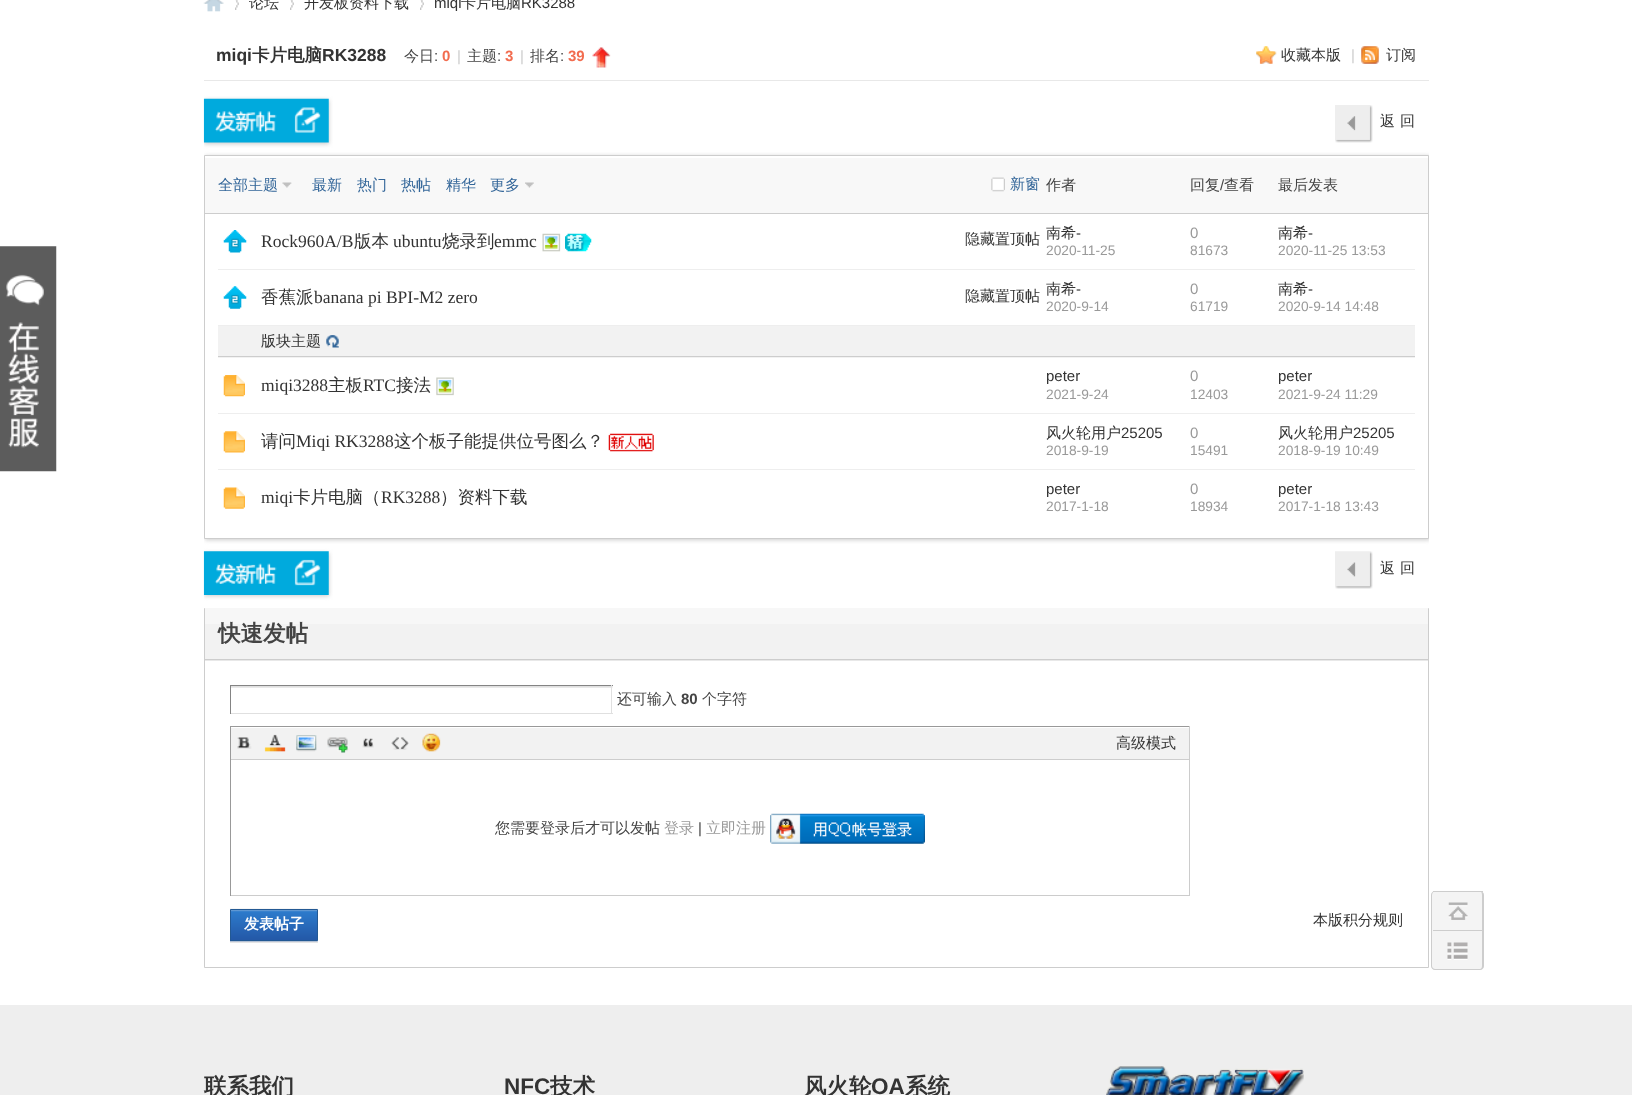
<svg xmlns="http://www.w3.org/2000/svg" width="1632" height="1095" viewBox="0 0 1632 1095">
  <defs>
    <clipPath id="clip1"><path d="M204 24h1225v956H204z"/></clipPath>
  </defs>
  <rect width="100%" height="100%" fill="#fff"/>
  <image x="0" y="246" width="57" height="226" href="img/1.png"/>
  <image x="203" y="0" width="21" height="12" href="img/2.png"/>
  <image x="235" y="0" width="4" height="10" href="img/3.png"/>
  <image x="290" y="0" width="4" height="10" href="img/4.png"/>
  <image x="420" y="0" width="4" height="10" href="img/4.png"/>
  <path d="M204 80V81H1429V25V80Z" fill="#e8e8e8"/>
  <image x="592" y="47" width="19" height="21" href="img/5.png"/>
  <image x="1256" y="46" width="21" height="18" href="img/6.png"/>
  <image x="1361" y="46" width="18" height="18" href="img/7.png"/>
  <g clip-path="url(#clip1)">
    <path d="M204 100h125v44H204z" fill="#ccc" filter="blur(2px)"/>
  </g>
  <image x="203" y="98" width="126" height="45" href="img/8.png"/>
  <image x="1335" y="105" width="38" height="38" href="img/9.png"/>
  <g clip-path="url(#clip1)">
    <path d="M205 156h1225v384H205z" fill="#ccc" filter="blur(2px)"/>
  </g>
  <path d="M204.5 155.5h1224v383H204.5z" fill="#fff" stroke="#cdcdcd"/>
  <path d="M205 158h1223v55H205z" fill="#f8f8f8"/>
  <path d="M205 213h1223v1H205z" fill="#cdcdcd"/>
  <image x="282" y="182" width="10" height="6" href="img/10.png"/>
  <image x="525" y="182" width="9" height="6" href="img/11.png"/>
  <image x="991" y="177" width="14" height="15" href="img/12.png"/>
  <path d="M218 269h1197v1H218z" fill="#eee"/>
  <image x="223" y="230" width="24" height="23" href="img/13.png"/>
  <image x="542" y="233" width="19" height="19" href="img/14.png"/>
  <image x="565" y="233" width="27" height="19" href="img/15.png"/>
  <path d="M218 325h1197v1H218z" fill="#eee"/>
  <image x="223" y="286" width="24" height="23" href="img/16.png"/>
  <path d="M218 326h1197v32H218z" fill="#f2f2f2"/>
  <path d="M218 356h1197v1H218z" fill="#cdcdcd"/>
  <image x="326" y="335" width="13" height="13" href="img/17.png"/>
  <path d="M218 413h1197v1H218z" fill="#eee"/>
  <image x="223" y="375" width="22" height="22" href="img/18.png"/>
  <image x="436" y="377" width="18" height="19" href="img/19.png"/>
  <path d="M218 469h1197v1H218z" fill="#eee"/>
  <image x="223" y="431" width="22" height="22" href="img/20.png"/>
  <image x="608" y="433" width="46" height="19" href="img/21.png"/>
  <image x="223" y="487" width="22" height="22" href="img/22.png"/>
  <g clip-path="url(#clip1)">
    <path d="M204 553h125v43H204z" fill="#ccc" filter="blur(2px)"/>
  </g>
  <image x="203" y="551" width="126" height="44" href="img/23.png"/>
  <image x="1335" y="551" width="38" height="38" href="img/24.png"/>
  <path d="M204.5 608.5h1224v359H204.5z" fill="none" stroke="#cdcdcd"/>
  <path d="M205 660V661H1428V610V660Z" fill="#e8e8e8"/>
  <path d="M205 624h1223v35H205z" fill="#f2f2f2"/>
  <path d="M205 608h1223v16H205z" fill="#f7f7f7"/>
  <path d="M205 659h1223v1H205z" fill="#cdcdcd"/>
  <image x="231" y="686" width="382" height="2" href="img/25.png"/>
  <path d="M230 685h383v1H230z" fill="#848484"/>
  <path d="M611 685h1v29H611z" fill="#e0e0e0"/>
  <path d="M230 713h383v1H230z" fill="#e0e0e0"/>
  <path d="M230 685h1v29H230z" fill="#848484"/>
  <path d="M230 726h960v1H230z" fill="#999"/>
  <path d="M1189 726h1v170H1189z" fill="#ccc"/>
  <path d="M230 895h960v1H230z" fill="#ccc"/>
  <path d="M230 726h1v170H230z" fill="#999"/>
  <path d="M231 728h958v31H231z" fill="#f2f2f2"/>
  <path d="M231 759h958v1H231z" fill="#cdcdcd"/>
  <image x="237" y="737" width="15" height="12" href="img/26.png"/>
  <image x="264" y="734" width="22" height="18" href="img/27.png"/>
  <image x="296" y="735" width="21" height="17" href="img/28.png"/>
  <image x="327" y="737" width="22" height="16" href="img/29.png"/>
  <image x="362" y="738" width="12" height="10" href="img/30.png"/>
  <image x="391" y="737" width="18" height="13" href="img/31.png"/>
  <image x="421" y="733" width="20" height="19" href="img/32.png"/>
  <image x="770" y="813" width="155" height="31" href="img/33.png"/>
  <path d="M230 941V943H318V910V941Z" fill="#e5e5e5"/>
  <image x="230" y="908" width="88" height="34" href="img/34.png"/>
  <path d="M230.5 909.5h87v31H230.5z" fill="none" stroke="#235994"/>
  <rect x="1431" y="891" width="53" height="79" rx="4" fill="#f4f4f4"/>
  <path d="M1435 891H1480C1482 891 1484 893 1484 895V966C1484 968 1482 970 1480 970H1435C1433 970 1431 968 1431 966V895C1431 893 1433 891 1435 891ZM1435 891H1480C1481 891 1482 893 1482 895V966C1482 968 1481 969 1480 969H1435C1434 969 1432 968 1432 966V895C1432 893 1434 891 1435 891Z" fill="#cdcdcd" fill-rule="evenodd"/>
  <image x="1448" y="902" width="20" height="18" href="img/35.png"/>
  <path d="M1433 891h50v1H1433z" fill="#cdcdcd"/>
  <image x="1447" y="942" width="21" height="18" href="img/36.png"/>
  <path d="M1433 930h50v1H1433z" fill="#cdcdcd"/>
  <path d="M0 1005h1632v90H0z" fill="#eee"/>
  <image x="1106" y="1066" width="198" height="29" href="img/37.png"/>
  <g font-family="WenQuanYi Zen Hei" font-size="15" font-weight="500" fill="#333">
    <text x="249" y="8">论坛</text>
    <text x="304" y="8">开发板资料下载</text>
  </g>
  <text x="434" y="8" font-family="Liberation Sans" font-size="15" fill="#333">miqi</text>
  <text x="461" y="8" font-family="WenQuanYi Zen Hei" font-size="15" font-weight="500" fill="#333">卡片电脑</text>
  <text x="521" y="8" font-family="Liberation Sans" font-size="15" fill="#333">RK3288</text>
  <text x="216" y="61" font-family="Liberation Sans" font-size="17.5" font-weight="bold" fill="#333">miqi</text>
  <text x="252" y="61" font-family="WenQuanYi Zen Hei" font-size="17.5" font-weight="bold" fill="#333">卡片电脑</text>
  <text x="322" y="61" font-family="Liberation Sans" font-size="17.5" font-weight="bold" fill="#333">RK3288</text>
  <text x="404" y="61" font-family="WenQuanYi Zen Hei" font-size="15" font-weight="500" fill="#444">今日</text>
  <text x="434" y="61" font-family="Liberation Sans" font-size="15" fill="#444">:</text>
  <text x="442" y="61" font-family="Liberation Sans" font-size="15" font-weight="bold" fill="#f26c4f">0</text>
  <text x="457" y="61" font-family="Liberation Sans" font-size="15" fill="#ccc">|</text>
  <text x="467" y="61" font-family="WenQuanYi Zen Hei" font-size="15" font-weight="500" fill="#444">主题</text>
  <text x="497" y="61" font-family="Liberation Sans" font-size="15" fill="#444">:</text>
  <text x="505" y="61" font-family="Liberation Sans" font-size="15" font-weight="bold" fill="#f26c4f">3</text>
  <text x="520" y="61" font-family="Liberation Sans" font-size="15" fill="#ccc">|</text>
  <text x="530" y="61" font-family="WenQuanYi Zen Hei" font-size="15" font-weight="500" fill="#444">排名</text>
  <text x="560" y="61" font-family="Liberation Sans" font-size="15" fill="#444">:</text>
  <text x="568" y="61" font-family="Liberation Sans" font-size="15" font-weight="bold" fill="#f26c4f">39</text>
  <text x="1281" y="60" font-family="WenQuanYi Zen Hei" font-size="15" font-weight="500" fill="#333">收藏本版</text>
  <text x="1351" y="60" font-family="Liberation Sans" font-size="15" fill="#ccc">|</text>
  <g font-family="WenQuanYi Zen Hei" font-size="15" font-weight="500" fill="#333">
    <text x="1386" y="60">订阅</text>
    <text x="1380" y="126">返</text>
    <text x="1400" y="126">回</text>
  </g>
  <g font-family="WenQuanYi Zen Hei" font-size="15" font-weight="500" fill="#369">
    <text x="218" y="190">全部主题</text>
    <text x="312" y="190">最新</text>
    <text x="357" y="190">热门</text>
    <text x="401" y="190">热帖</text>
    <text x="446" y="190">精华</text>
    <text x="490" y="190">更多</text>
    <text x="1010" y="189">新窗</text>
  </g>
  <g font-family="WenQuanYi Zen Hei" font-size="15" font-weight="500" fill="#444">
    <text x="1046" y="190">作者</text>
    <text x="1190" y="190">回复</text>
  </g>
  <text x="1220" y="190" font-family="Liberation Sans" font-size="15" fill="#444">/</text>
  <g font-family="WenQuanYi Zen Hei" font-size="15" font-weight="500" fill="#444">
    <text x="1224" y="190">查看</text>
    <text x="1278" y="190">最后发表</text>
  </g>
  <text x="1046" y="238" font-family="WenQuanYi Zen Hei" font-size="15" font-weight="500" fill="#333">南希</text>
  <text x="1076" y="238" font-family="Liberation Sans" font-size="15" fill="#333">-</text>
  <text x="1046" y="255" font-family="Liberation Sans" font-size="13.75" fill="#999">2020-11-25</text>
  <text x="1190" y="238" font-family="Liberation Sans" font-size="15" fill="#999">0</text>
  <text x="1190" y="255" font-family="Liberation Sans" font-size="13.75" fill="#999">81673</text>
  <text x="1278" y="238" font-family="WenQuanYi Zen Hei" font-size="15" font-weight="500" fill="#333">南希</text>
  <text x="1308" y="238" font-family="Liberation Sans" font-size="15" fill="#333">-</text>
  <text x="1278" y="255" font-family="Liberation Sans" font-size="13.75" fill="#999">2020-11-25 13:53</text>
  <text x="261" y="247" font-family="Liberation Serif" font-size="17.5" fill="#333">Rock960A/B</text>
  <text x="354" y="247" font-family="WenQuanYi Zen Hei" font-size="17.5" font-weight="500" fill="#333">版本</text>
  <text x="393" y="247" font-family="Liberation Serif" font-size="17.5" fill="#333">ubuntu</text>
  <text x="442" y="247" font-family="WenQuanYi Zen Hei" font-size="17.5" font-weight="500" fill="#333">烧录到</text>
  <text x="494" y="247" font-family="Liberation Serif" font-size="17.5" fill="#333">emmc</text>
  <g font-family="WenQuanYi Zen Hei" font-size="15" font-weight="500" fill="#333">
    <text x="965" y="244">隐藏置顶帖</text>
    <text x="1046" y="294">南希</text>
  </g>
  <text x="1076" y="294" font-family="Liberation Sans" font-size="15" fill="#333">-</text>
  <text x="1046" y="311" font-family="Liberation Sans" font-size="13.75" fill="#999">2020-9-14</text>
  <text x="1190" y="294" font-family="Liberation Sans" font-size="15" fill="#999">0</text>
  <text x="1190" y="311" font-family="Liberation Sans" font-size="13.75" fill="#999">61719</text>
  <text x="1278" y="294" font-family="WenQuanYi Zen Hei" font-size="15" font-weight="500" fill="#333">南希</text>
  <text x="1308" y="294" font-family="Liberation Sans" font-size="15" fill="#333">-</text>
  <text x="1278" y="311" font-family="Liberation Sans" font-size="13.75" fill="#999">2020-9-14 14:48</text>
  <text x="261" y="303" font-family="WenQuanYi Zen Hei" font-size="17.5" font-weight="500" fill="#333">香蕉派</text>
  <text x="314" y="303" font-family="Liberation Serif" font-size="17.5" fill="#333">banana pi BPI-M2 zero</text>
  <g font-family="WenQuanYi Zen Hei" font-size="15" font-weight="500" fill="#333">
    <text x="965" y="301">隐藏置顶帖</text>
    <text x="261" y="346">版块主题</text>
  </g>
  <text x="1046" y="381" font-family="Liberation Sans" font-size="15" fill="#333">peter</text>
  <text x="1046" y="399" font-family="Liberation Sans" font-size="13.75" fill="#999">2021-9-24</text>
  <text x="1190" y="381" font-family="Liberation Sans" font-size="15" fill="#999">0</text>
  <text x="1190" y="399" font-family="Liberation Sans" font-size="13.75" fill="#999">12403</text>
  <text x="1278" y="381" font-family="Liberation Sans" font-size="15" fill="#333">peter</text>
  <text x="1278" y="399" font-family="Liberation Sans" font-size="13.75" fill="#999">2021-9-24 11:29</text>
  <text x="261" y="391" font-family="Liberation Serif" font-size="17.5" fill="#333">miqi3288</text>
  <text x="328" y="391" font-family="WenQuanYi Zen Hei" font-size="17.5" font-weight="500" fill="#333">主板</text>
  <text x="363" y="391" font-family="Liberation Serif" font-size="17.5" fill="#333">RTC</text>
  <text x="396" y="391" font-family="WenQuanYi Zen Hei" font-size="17.5" font-weight="500" fill="#333">接法</text>
  <text x="1046" y="438" font-family="WenQuanYi Zen Hei" font-size="15" font-weight="500" fill="#333">风火轮用户</text>
  <text x="1121" y="438" font-family="Liberation Sans" font-size="15" fill="#333">25205</text>
  <text x="1046" y="455" font-family="Liberation Sans" font-size="13.75" fill="#999">2018-9-19</text>
  <text x="1190" y="438" font-family="Liberation Sans" font-size="15" fill="#999">0</text>
  <text x="1190" y="455" font-family="Liberation Sans" font-size="13.75" fill="#999">15491</text>
  <text x="1278" y="438" font-family="WenQuanYi Zen Hei" font-size="15" font-weight="500" fill="#333">风火轮用户</text>
  <text x="1353" y="438" font-family="Liberation Sans" font-size="15" fill="#333">25205</text>
  <text x="1278" y="455" font-family="Liberation Sans" font-size="13.75" fill="#999">2018-9-19 10:49</text>
  <text x="261" y="447" font-family="WenQuanYi Zen Hei" font-size="17.5" font-weight="500" fill="#333">请问</text>
  <text x="296" y="447" font-family="Liberation Serif" font-size="17.5" fill="#333">Miqi RK3288</text>
  <text x="394" y="447" font-family="WenQuanYi Zen Hei" font-size="17.5" font-weight="500" fill="#333">这个板子能提供位号图么？</text>
  <text x="261" y="503" font-family="Liberation Serif" font-size="17.5" fill="#333">miqi</text>
  <text x="293" y="503" font-family="WenQuanYi Zen Hei" font-size="17.5" font-weight="500" fill="#333">卡片电脑（</text>
  <text x="381" y="503" font-family="Liberation Serif" font-size="17.5" fill="#333">RK3288</text>
  <text x="440" y="503" font-family="WenQuanYi Zen Hei" font-size="17.5" font-weight="500" fill="#333">）资料下载</text>
  <text x="1046" y="494" font-family="Liberation Sans" font-size="15" fill="#333">peter</text>
  <text x="1046" y="511" font-family="Liberation Sans" font-size="13.75" fill="#999">2017-1-18</text>
  <text x="1190" y="494" font-family="Liberation Sans" font-size="15" fill="#999">0</text>
  <text x="1190" y="511" font-family="Liberation Sans" font-size="13.75" fill="#999">18934</text>
  <text x="1278" y="494" font-family="Liberation Sans" font-size="15" fill="#333">peter</text>
  <text x="1278" y="511" font-family="Liberation Sans" font-size="13.75" fill="#999">2017-1-18 13:43</text>
  <g font-family="WenQuanYi Zen Hei" font-size="15" font-weight="500" fill="#333">
    <text x="1380" y="573">返</text>
    <text x="1400" y="573">回</text>
  </g>
  <text x="218" y="641" font-family="WenQuanYi Zen Hei" font-size="22.5" font-weight="bold" fill="#444">快速发帖</text>
  <text x="617" y="704" font-family="WenQuanYi Zen Hei" font-size="15" font-weight="500" fill="#444">还可输入</text>
  <text x="681" y="704" font-family="Liberation Sans" font-size="15" font-weight="bold" fill="#444">80</text>
  <text x="702" y="704" font-family="WenQuanYi Zen Hei" font-size="15" font-weight="500" fill="#444">个字符</text>
  <text x="1116" y="748" font-family="WenQuanYi Zen Hei" font-size="15" font-weight="500" fill="#333">高级模式</text>
  <text x="495" y="833" font-family="WenQuanYi Zen Hei" font-size="15" font-weight="500" fill="#444">您需要登录后才可以发帖</text>
  <text x="664" y="833" font-family="WenQuanYi Zen Hei" font-size="15" font-weight="500" fill="#999">登录</text>
  <text x="698" y="833" font-family="Liberation Sans" font-size="15" fill="#444">|</text>
  <text x="706" y="833" font-family="WenQuanYi Zen Hei" font-size="15" font-weight="500" fill="#999">立即注册</text>
  <text x="244" y="929" font-family="WenQuanYi Zen Hei" font-size="15" font-weight="bold" fill="#fff">发表帖子</text>
  <text x="1313" y="925" font-family="WenQuanYi Zen Hei" font-size="15" font-weight="500" fill="#333">本版积分规则</text>
  <text x="204" y="1094" font-family="WenQuanYi Zen Hei" font-size="22.5" font-weight="bold" fill="#333">联系我们</text>
  <text x="504" y="1094" font-family="Liberation Sans" font-size="22.5" font-weight="bold" fill="#333">NFC</text>
  <g font-family="WenQuanYi Zen Hei" font-size="22.5" font-weight="bold" fill="#333">
    <text x="550" y="1094">技术</text>
    <text x="804" y="1094">风火轮</text>
  </g>
  <text x="871" y="1094" font-family="Liberation Sans" font-size="22.5" font-weight="bold" fill="#333">OA</text>
  <text x="905" y="1094" font-family="WenQuanYi Zen Hei" font-size="22.5" font-weight="bold" fill="#333">系统</text>
</svg>
